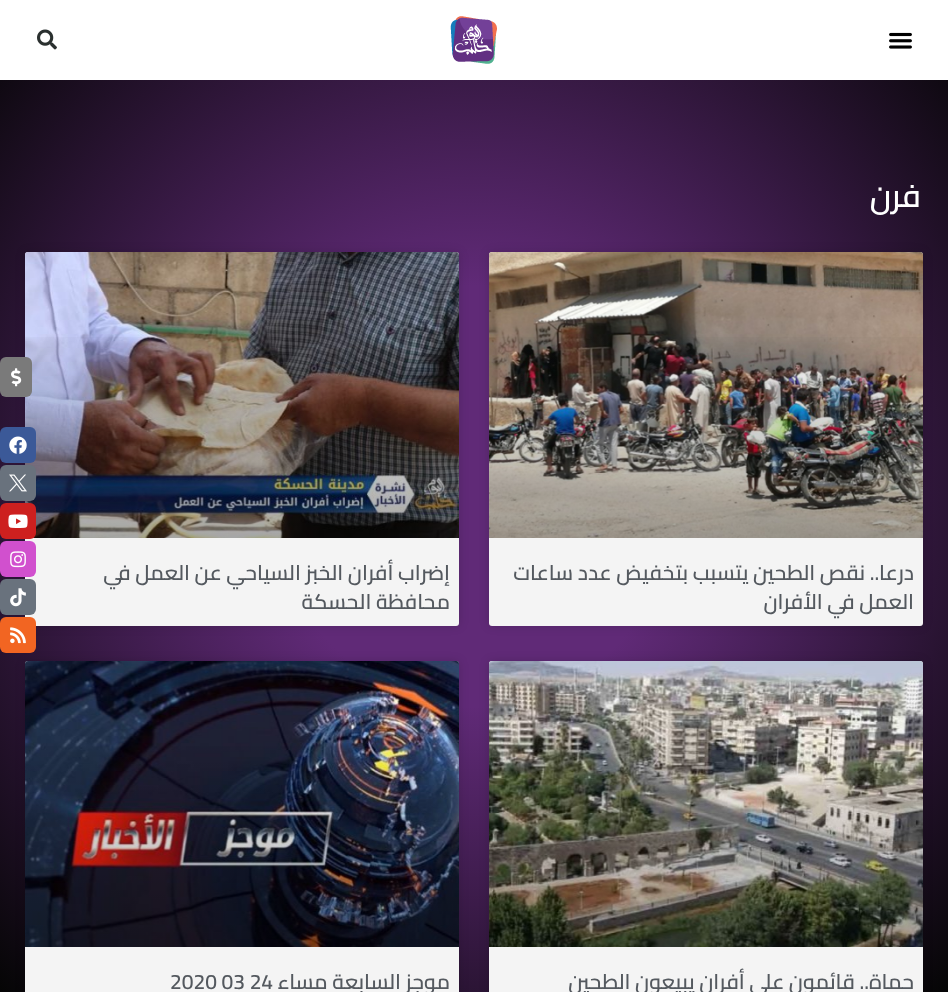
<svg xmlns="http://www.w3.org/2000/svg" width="948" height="992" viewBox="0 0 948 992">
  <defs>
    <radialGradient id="g1" gradientUnits="userSpaceOnUse" cx="0" cy="0" r="1" gradientTransform="matrix(670 0 0 701 474 496)"><stop offset="0.3" stop-color="#602a77"/><stop offset="1" stop-color="#050505"/></radialGradient>
    <linearGradient id="g2" gradientUnits="userSpaceOnUse" x1="706" y1="538" x2="706" y2="252"><stop offset="0" stop-color="#000" stop-opacity="0.35"/><stop offset="0.75" stop-color="#000" stop-opacity="0"/></linearGradient>
    <linearGradient id="g3" gradientUnits="userSpaceOnUse" x1="242" y1="538" x2="242" y2="252"><stop offset="0" stop-color="#000" stop-opacity="0.35"/><stop offset="0.75" stop-color="#000" stop-opacity="0"/></linearGradient>
    <linearGradient id="g4" gradientUnits="userSpaceOnUse" x1="706" y1="947" x2="706" y2="661"><stop offset="0" stop-color="#000" stop-opacity="0.35"/><stop offset="0.75" stop-color="#000" stop-opacity="0"/></linearGradient>
    <linearGradient id="g5" gradientUnits="userSpaceOnUse" x1="242" y1="947" x2="242" y2="661"><stop offset="0" stop-color="#000" stop-opacity="0.35"/><stop offset="0.75" stop-color="#000" stop-opacity="0"/></linearGradient>
  </defs>
  <rect width="100%" height="100%" fill="#fff"/>
  <path d="M0 80h948v912H0z" fill="url(#g1)"/>
  <image x="889" y="32" width="23" height="17" href="img/1.png"/>
  <image x="450" y="16" width="47" height="48" href="img/2.png"/>
  <image x="37" y="29" width="20" height="21" href="img/3.png"/>
  <rect x="489" y="252" width="434" height="374" rx="3" fill="#00000026" filter="blur(5px)"/>
  <rect x="489" y="252" width="434" height="374" rx="3" fill="#f4f4f4"/>
  <image x="489" y="252" width="434" height="286" href="img/4.png"/>
  <path d="M489 337h434v201H489z" fill="url(#g2)"/>
  <rect x="25" y="252" width="434" height="374" rx="3" fill="#00000026" filter="blur(5px)"/>
  <rect x="25" y="252" width="434" height="374" rx="3" fill="#f4f4f4"/>
  <image x="25" y="252" width="434" height="286" href="img/5.png"/>
  <path d="M25 337h434v201H25z" fill="url(#g3)"/>
  <rect x="489" y="661" width="434" height="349" rx="3" fill="#00000026" filter="blur(5px)"/>
  <rect x="489" y="661" width="434" height="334" rx="3" fill="#f4f4f4"/>
  <image x="489" y="661" width="434" height="286" href="img/6.png"/>
  <path d="M489 746h434v201H489z" fill="url(#g4)"/>
  <rect x="25" y="661" width="434" height="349" rx="3" fill="#00000026" filter="blur(5px)"/>
  <rect x="25" y="661" width="434" height="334" rx="3" fill="#f4f4f4"/>
  <image x="25" y="661" width="434" height="286" href="img/7.png"/>
  <path d="M25 746h434v201H25z" fill="url(#g5)"/>
  <rect y="357" width="32" height="40" rx="6" fill="#7a7a7a"/>
  <image x="11" y="368" width="11" height="19" href="img/8.png"/>
  <rect y="427" width="36" height="36" rx="6" fill="#3b5998"/>
  <image x="9" y="436" width="18" height="18" href="img/9.png"/>
  <rect y="465" width="36" height="36" rx="6" fill="#69727d"/>
  <image x="9" y="474" width="18" height="18" href="img/10.png"/>
  <rect y="503" width="36" height="36" rx="6" fill="#cd201f"/>
  <image x="8" y="514" width="20" height="14" href="img/11.png"/>
  <rect y="541" width="36" height="36" rx="6" fill="#d150ce"/>
  <image x="10" y="551" width="16" height="17" href="img/12.png"/>
  <rect y="579" width="36" height="36" rx="6" fill="#69727d"/>
  <image x="10" y="588" width="16" height="19" href="img/13.png"/>
  <rect y="617" width="36" height="36" rx="6" fill="#f26522"/>
  <image x="10" y="627" width="16" height="17" href="img/14.png"/>
  <text x="921" y="207" font-family="Cairo" font-size="32" font-weight="600" letter-spacing="-0.5" direction="rtl" fill="#fff">فرن</text>
  <g font-family="Cairo" font-size="21" font-weight="600" direction="rtl" fill="#54595f">
    <text x="914" y="580">درعا.. نقص الطحين يتسبب بتخفيض عدد ساعات</text>
    <text x="914" y="609">العمل في الأفران</text>
    <text x="450" y="580">إضراب أفران الخبز السياحي عن العمل في</text>
    <text x="450" y="609">محافظة الحسكة</text>
    <text x="914" y="989">حماة.. قائمون على أفران يبيعون الطحين</text>
    <text x="450" y="989">موجز السابعة مساء</text>
  </g>
  <text x="170" y="989" font-family="Cairo" font-size="21" font-weight="600" fill="#54595f">2020 03 24</text>
</svg>
